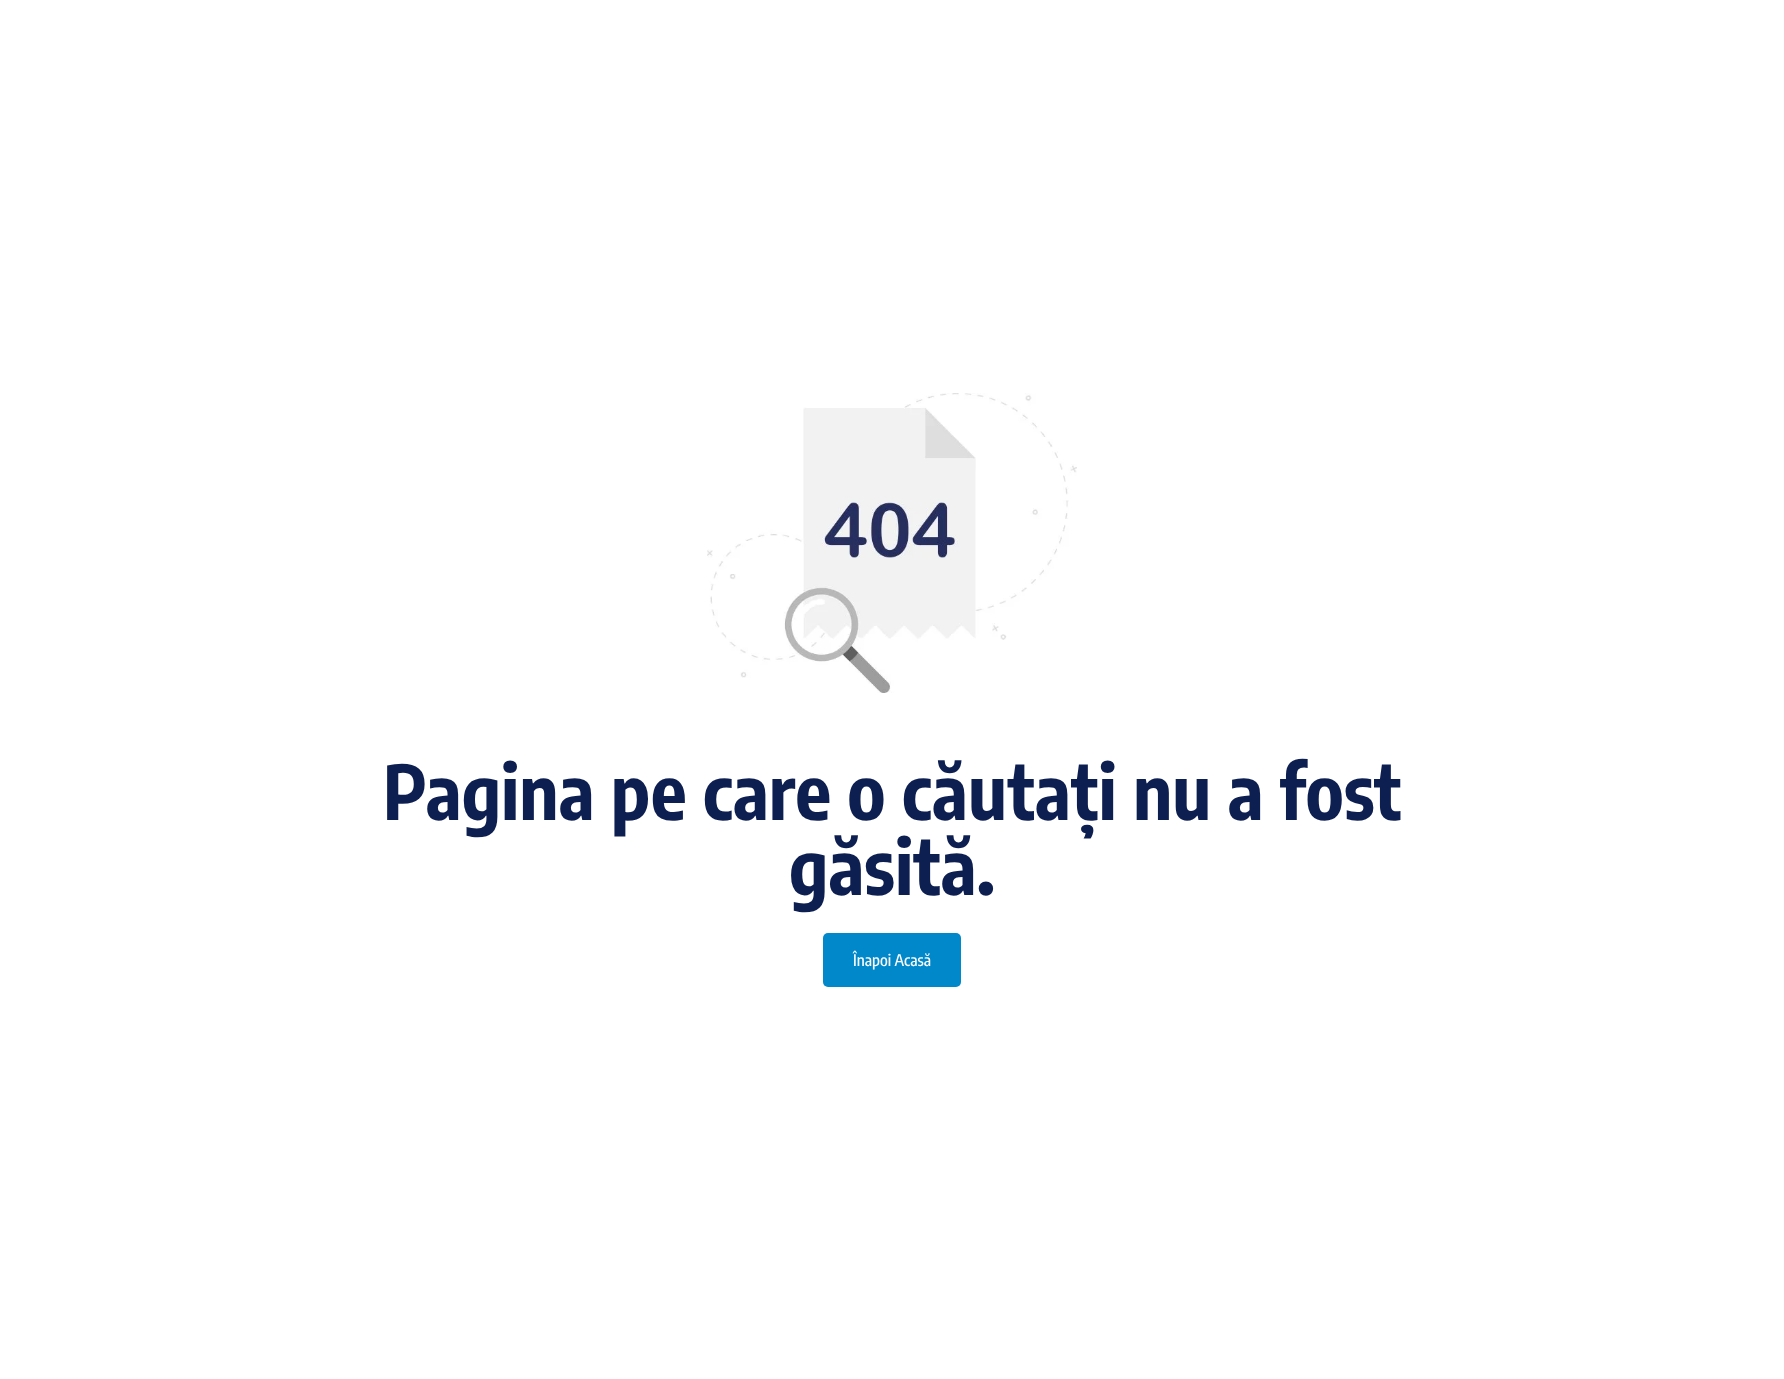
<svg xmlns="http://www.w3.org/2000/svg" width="1784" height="1379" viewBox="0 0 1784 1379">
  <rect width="100%" height="100%" fill="#fff"/>
  <image x="707" y="393" width="370" height="300" href="img/1.png"/>
  <rect x="823" y="933" width="138" height="54" rx="5" fill="#0088cb"/>
  <g font-family="Encode Sans Condensed" font-size="75" font-weight="bold" fill="#0d1e50">
    <text x="383" y="820">Pagina pe care o căutați nu a fost</text>
    <text x="789" y="895">găsită.</text>
  </g>
  <text x="853" y="966" font-family="Encode Sans Condensed" font-size="16" font-weight="500" fill="#fff">Înapoi Acasă</text>
</svg>
